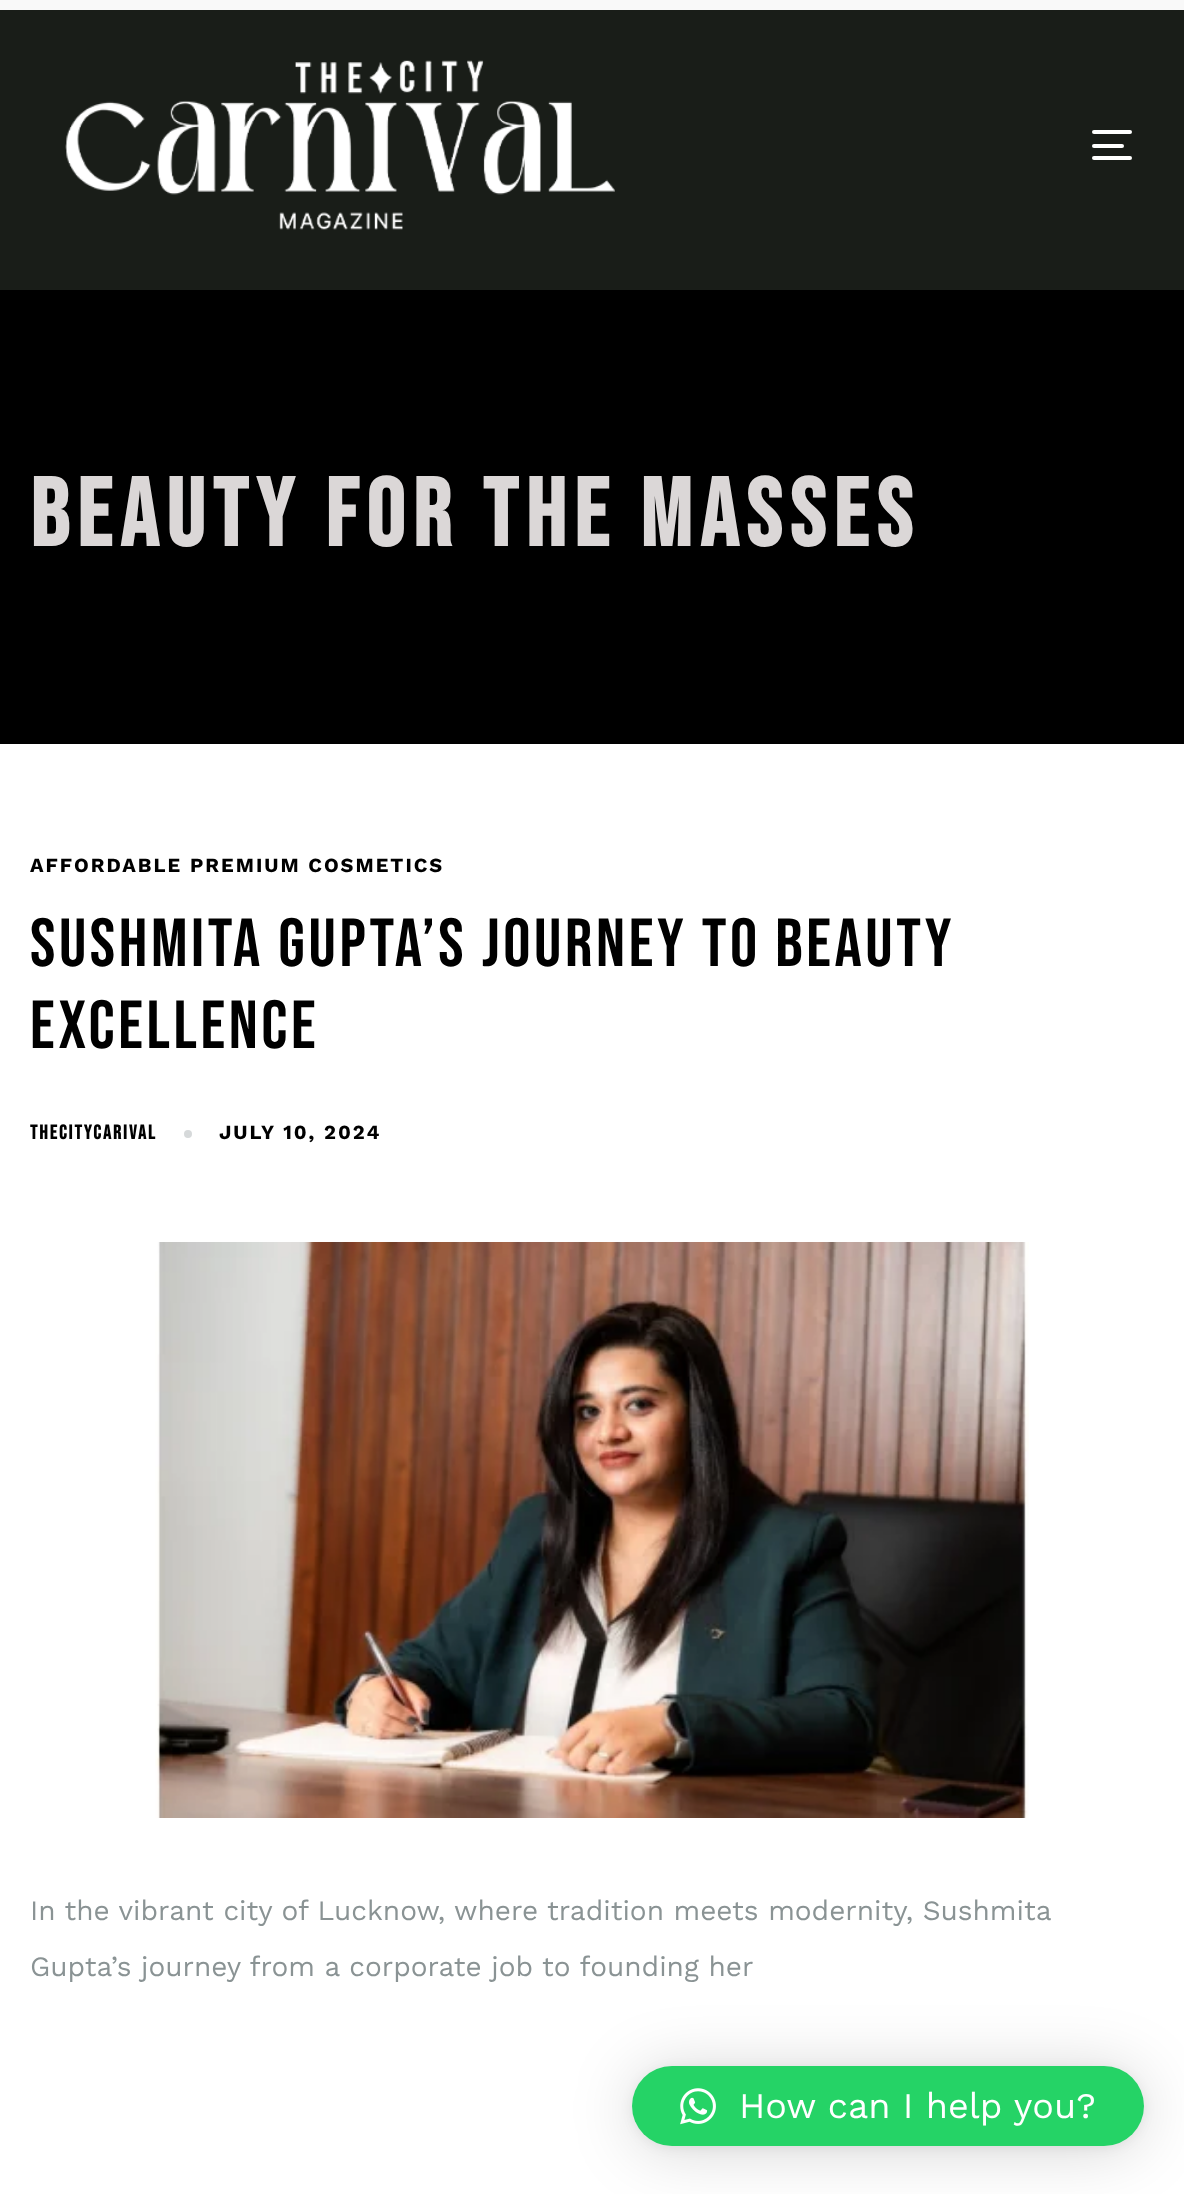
<svg xmlns="http://www.w3.org/2000/svg" width="1184" height="2194" viewBox="0 0 1184 2194">
  <rect width="100%" height="100%" fill="#fff"/>
  <path d="M0 0h1184v10H0z" fill="#f9f9f9"/>
  <path d="M0 290h1184v454H0z" fill="#000"/>
  <path d="M0 10h1184v280H0z" fill="#191d18"/>
  <image x="65" y="60" width="550" height="170" href="img/1.png"/>
  <rect x="1092" y="130" width="40" height="4" rx="2" fill="#fff"/>
  <rect x="1092" y="144" width="32" height="4" rx="2" fill="#fff"/>
  <rect x="1092" y="156" width="40" height="4" rx="2" fill="#fff"/>
  <circle cx="188" cy="1134" r="4" fill="#d6d9da"/>
  <image x="155" y="1242" width="874" height="576" href="img/2.png"/>
  <rect x="632" y="2070" width="512" height="80" rx="40" fill="#00000029" filter="blur(32px)"/>
  <rect x="632" y="2068" width="512" height="80" rx="40" fill="#0000000f" filter="blur(6px)"/>
  <rect x="632" y="2066" width="512" height="80" rx="40" fill="#25d366"/>
  <image x="680" y="2088" width="36" height="37" href="img/3.png"/>
  <text x="30" y="546" font-family="Bebas Neue" font-size="96" font-weight="bold" letter-spacing="8" fill="#dbd7d7">BEAUTY FOR THE MASSES</text>
  <text x="30" y="872" font-family="Work Sans" font-size="20" font-weight="bold" letter-spacing="2" fill="#000">AFFORDABLE PREMIUM COSMETICS</text>
  <g font-family="Bebas Neue" font-size="68" letter-spacing="3.6" fill="#000">
    <text x="30" y="966">SUSHMITA GUPTA’S JOURNEY TO BEAUTY</text>
    <text x="30" y="1048">EXCELLENCE</text>
  </g>
  <text x="30" y="1139" font-family="Bebas Neue" font-size="20" font-weight="bold" letter-spacing="2" fill="#000">THECITYCARIVAL</text>
  <text x="219" y="1139" font-family="Work Sans" font-size="20" font-weight="bold" letter-spacing="2" fill="#000">JULY 10, 2024</text>
  <g font-family="Work Sans" font-size="28" fill="#8a9394">
    <text x="30" y="1920">In the vibrant city of Lucknow, where tradition meets modernity, Sushmita</text>
    <text x="30" y="1976">Gupta’s journey from a corporate job to founding her</text>
  </g>
  <text x="739" y="2118" font-family="Work Sans" font-size="36" fill="#fff">How can I help you?</text>
</svg>
